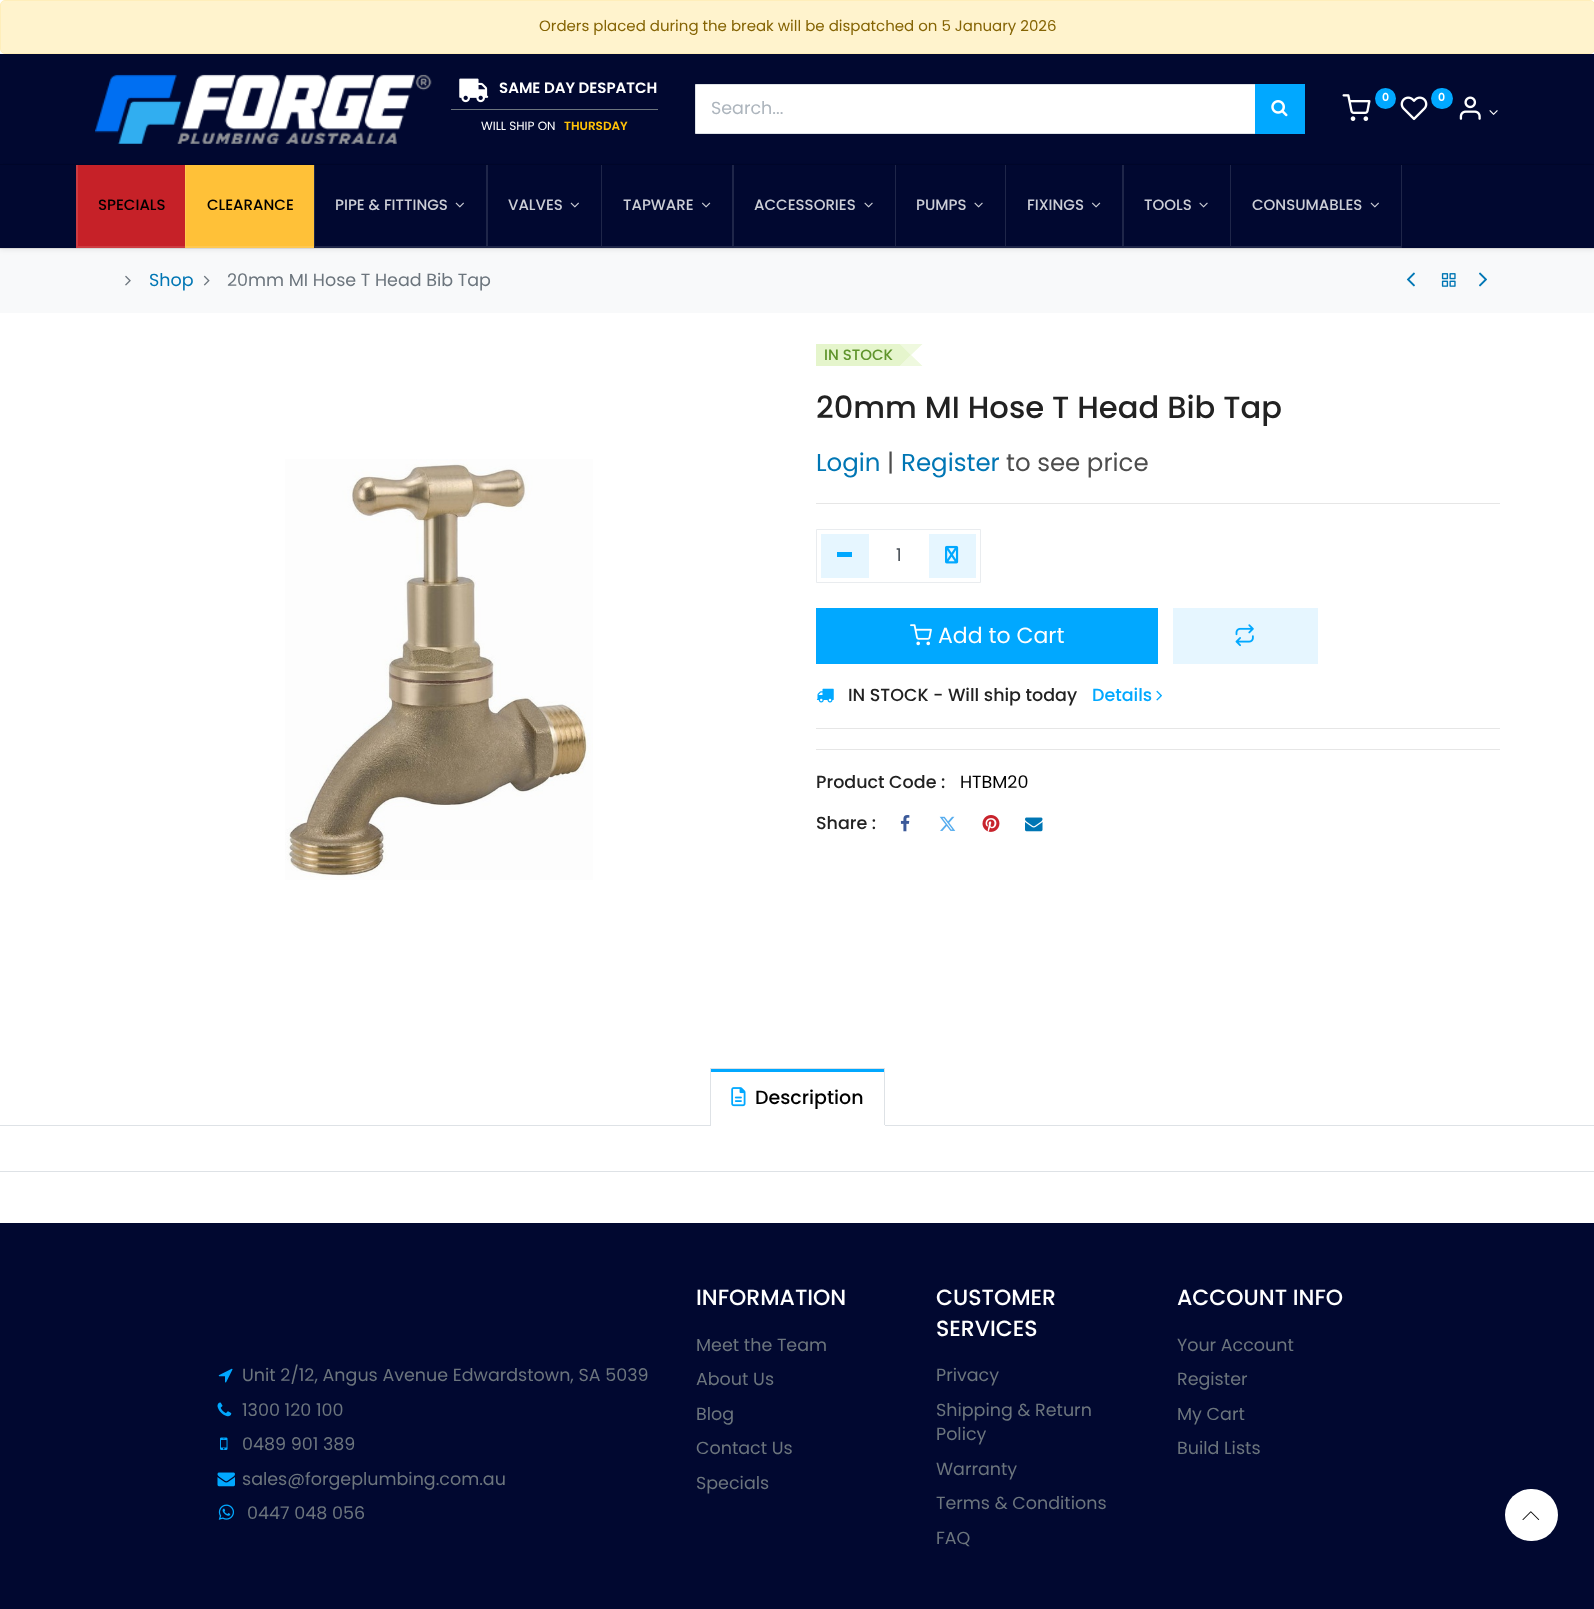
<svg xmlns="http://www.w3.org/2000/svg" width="1594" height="1609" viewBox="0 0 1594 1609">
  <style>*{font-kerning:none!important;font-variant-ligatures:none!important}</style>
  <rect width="100%" height="100%" fill="#fff"/>
  <rect x="0.5" y="0.5" width="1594" height="53" rx="4.5" fill="#fff3cd" stroke="#ffeeba"/>
  <path d="M0 54h1594v110H0z" fill="#010830"/>
  <path d="M0 164h1594v1H0z" fill="#01072a"/>
  <image x="95" y="74" width="337" height="70" href="img/1.png"/>
  <image x="459" y="78" width="30" height="25" href="img/2.png"/>
  <path d="M451 109h207v1H451z" fill="#6c757d"/>
  <image x="1342" y="94" width="29" height="27" href="img/3.png"/>
  <circle cx="1385.5" cy="98.5" r="10.5" fill="#01a8ff"/>
  <image x="1400" y="96" width="28" height="25" href="img/4.png"/>
  <rect x="1431" y="88" width="22" height="21" rx="10.5" fill="#01a8ff"/>
  <image x="1459" y="96" width="22" height="24" href="img/5.png"/>
  <image x="1489" y="110" width="9" height="5" href="img/6.png"/>
  <path d="M695.5 84.5h560v49H695.5z" fill="#fff" stroke="#dee2e6"/>
  <path d="M1255 84h50v50H1255z" fill="#01a8ff"/>
  <image x="1271" y="100" width="17" height="17" href="img/7.png"/>
  <path d="M0 249h1594v64H0z" fill="#f8f9fa"/>
  <path d="M0 248h1594v1H0z" fill="#e5e5e5"/>
  <path d="M0 168h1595v82H0z" fill="#00000012" filter="blur(2.5px)"/>
  <path d="M0 165h1594v83H0z" fill="#010830"/>
  <path d="M76 165h109v83H76z" fill="#c62128"/>
  <path d="M185 248H76L78 246H185Z" fill="#cd3c42"/>
  <path d="M76 248V165H78V246Z" fill="#ffffff1f"/>
  <path d="M185 165h129v83H185z" fill="#ffc138"/>
  <path d="M314 248H185L186 246H314Z" fill="#ffc850"/>
  <path d="M185 248V165H186V246Z" fill="#ffffff1f"/>
  <path d="M486 248H314L315 246H486Z" fill="#1f2649"/>
  <path d="M314 248V165H315V246Z" fill="#ffffff1f"/>
  <image x="455" y="202" width="9" height="6" href="img/8.png"/>
  <path d="M601 248H486L488 246H601Z" fill="#1f2649"/>
  <path d="M486 248V165H488V246Z" fill="#ffffff1f"/>
  <image x="570" y="202" width="9" height="6" href="img/8.png"/>
  <path d="M732 248H601L602 246H732Z" fill="#1f2649"/>
  <path d="M601 248V165H602V246Z" fill="#ffffff1f"/>
  <image x="701" y="202" width="10" height="6" href="img/9.png"/>
  <path d="M895 248H732L734 246H895Z" fill="#1f2649"/>
  <path d="M732 248V165H734V246Z" fill="#ffffff1f"/>
  <image x="864" y="202" width="9" height="6" href="img/10.png"/>
  <path d="M1005 248H895L896 246H1005Z" fill="#1f2649"/>
  <path d="M895 248V165H896V246Z" fill="#ffffff1f"/>
  <image x="974" y="202" width="9" height="6" href="img/10.png"/>
  <path d="M1122 248H1005L1006 246H1122Z" fill="#1f2649"/>
  <path d="M1005 248V165H1006V246Z" fill="#ffffff1f"/>
  <image x="1091" y="202" width="10" height="6" href="img/9.png"/>
  <path d="M1230 248H1122L1124 246H1230Z" fill="#1f2649"/>
  <path d="M1122 248V165H1124V246Z" fill="#ffffff1f"/>
  <image x="1199" y="202" width="9" height="6" href="img/10.png"/>
  <path d="M1402 165V248L1401 246V165Z" fill="#1f2649"/>
  <path d="M1402 248H1230L1231 246H1401Z" fill="#ffffff1f"/>
  <path d="M1230 248V165H1231V246Z" fill="#ffffff1f"/>
  <image x="1370" y="202" width="9" height="6" href="img/8.png"/>
  <image x="125" y="275" width="6" height="11" href="img/11.png"/>
  <image x="203" y="275" width="7" height="11" href="img/12.png"/>
  <image x="1406" y="272" width="9" height="15" href="img/13.png"/>
  <image x="1441" y="273" width="15" height="14" href="img/14.png"/>
  <image x="1479" y="272" width="8" height="15" href="img/15.png"/>
  <image x="285" y="459" width="308" height="421" href="img/16.png"/>
  <path d="M816 344h84v22H816z" fill="#e5f5cc"/>
  <path d="M900 344H922.5L911 355ZM922.5 366H900L911 355Z" fill="#eff9df"/>
  <path d="M900 366V344L911 355Z" fill="#dff2bfcc"/>
  <path d="M816 503h684v1H816z" fill="#e6e6e6"/>
  <path d="M816.5 529.5h164v53H816.5z" fill="none" stroke="#e9ecef"/>
  <path d="M821 534h48v44H821z" fill="#e6f6ff"/>
  <path d="M837 552h15v5H837z" fill="#01a8ff"/>
  <path d="M929 534h47v44H929z" fill="#e6f6ff"/>
  <image x="945" y="545" width="14" height="19" href="img/17.png"/>
  <path d="M816 608h342v56H816z" fill="#01a8ff"/>
  <image x="910" y="624" width="22" height="22" href="img/18.png"/>
  <path d="M1173 608h145v56H1173z" fill="#e6f6ff"/>
  <image x="1235" y="624" width="19" height="23" href="img/19.png"/>
  <image x="816" y="688" width="18" height="15" href="img/20.png"/>
  <image x="1156" y="690" width="6" height="11" href="img/21.png"/>
  <path d="M816 728h684v1H816z" fill="#e6e6e6"/>
  <path d="M816 749h684v1H816z" fill="#e6e6e6"/>
  <image x="900" y="815" width="10" height="17" href="img/22.png"/>
  <image x="939" y="816" width="17" height="15" href="img/23.png"/>
  <image x="982" y="815" width="18" height="17" href="img/24.png"/>
  <image x="1025" y="817" width="18" height="15" href="img/25.png"/>
  <path d="M0 1125h1594v1H0z" fill="#dee2e6"/>
  <path d="M711 1069h173v3H711z" fill="#01a8ff"/>
  <path d="M710 1068h175v1H710z" fill="#dee2e6"/>
  <path d="M884 1068h1v58H884z" fill="#dee2e6"/>
  <path d="M710 1125h175v1H710z" fill="#fff"/>
  <path d="M710 1068h1v58H710z" fill="#dee2e6"/>
  <image x="731" y="1087" width="15" height="20" href="img/26.png"/>
  <path d="M0 1171h1594v1H0z" fill="#dee2e6"/>
  <path d="M0 1223h1594v386H0z" fill="#010830"/>
  <image x="218" y="1368" width="15" height="15" href="img/27.png"/>
  <image x="217" y="1402" width="15" height="15" href="img/28.png"/>
  <image x="220" y="1437" width="8" height="13" href="img/29.png"/>
  <image x="217" y="1472" width="18" height="15" href="img/30.png"/>
  <image x="218" y="1504" width="16" height="16" href="img/31.png"/>
  <rect x="1505" y="1489" width="53" height="52" rx="26" fill="#fff"/>
  <image x="1522" y="1511" width="18" height="9" href="img/32.png"/>
  <text x="539" y="31" font-family="Poppins" font-size="15" fill="#856404">Orders placed during the break will be dispatched on 5 January 2026</text>
  <text x="499" y="93" font-family="Poppins" font-size="15" font-weight="600" fill="#fff">SAME DAY DESPATCH</text>
  <text x="481" y="130" font-family="Poppins" font-size="12" fill="#fff">WILL SHIP ON</text>
  <text x="564" y="130" font-family="Poppins" font-size="12" font-weight="600" fill="#ffc107">THURSDAY</text>
  <g font-family="Poppins" font-size="11" font-weight="600" fill="#fff">
    <text x="1382" y="101">0</text>
    <text x="1438" y="101">0</text>
  </g>
  <text x="711" y="114" font-family="Poppins" font-size="17.5" fill="#adb5bd">Search...</text>
  <g font-family="Poppins" font-size="15" font-weight="500" fill="#000">
    <text x="98" y="210">SPECIALS</text>
    <text x="207" y="210">CLEARANCE</text>
  </g>
  <g font-family="Poppins" font-size="15" font-weight="500" fill="#ccced6">
    <text x="335" y="210">PIPE &amp; FITTINGS</text>
    <text x="508" y="210">VALVES</text>
    <text x="623" y="210">TAPWARE</text>
    <text x="754" y="210">ACCESSORIES</text>
    <text x="916" y="210">PUMPS</text>
    <text x="1027" y="210">FIXINGS</text>
    <text x="1144" y="210">TOOLS</text>
    <text x="1252" y="210">CONSUMABLES</text>
  </g>
  <text x="149" y="286" font-family="Poppins" font-size="17.5" fill="#0076b4">Shop</text>
  <text x="227" y="286" font-family="Poppins" font-size="17.5" fill="#6c757d">20mm MI Hose T Head Bib Tap</text>
  <text x="824" y="360" font-family="Poppins" font-size="15" font-weight="500" fill="#5f942b">IN STOCK</text>
  <text x="816" y="418" font-family="Poppins" font-size="30.6" font-weight="500" fill="#222">20mm MI Hose T Head Bib Tap</text>
  <text x="816" y="471" font-family="Poppins" font-size="24.5" fill="#0076b4">Login</text>
  <text x="887" y="471" font-family="Poppins" font-size="24.5" fill="#4d4d4d">|</text>
  <text x="901" y="471" font-family="Poppins" font-size="24.5" fill="#0076b4">Register</text>
  <text x="1006" y="471" font-family="Poppins" font-size="24.5" fill="#4d4d4d">to see price</text>
  <text x="896" y="561" font-family="Poppins" font-size="17.5" fill="#495057">1</text>
  <text x="938" y="643" font-family="Poppins" font-size="22" fill="#fff">Add to Cart</text>
  <text x="848" y="701" font-family="Poppins" font-size="17.5" font-weight="500" fill="#222">IN STOCK - Will ship today</text>
  <text x="1092" y="701" font-family="Poppins" font-size="17.5" font-weight="500" fill="#01a8ff">Details</text>
  <text x="816" y="788" font-family="Poppins" font-size="17.5" font-weight="500" fill="#222">Product Code :</text>
  <text x="960" y="788" font-family="Poppins" font-size="17.5" fill="#000">HTBM20</text>
  <text x="816" y="829" font-family="Poppins" font-size="17.5" font-weight="500" fill="#222">Share :</text>
  <text x="755" y="1104" font-family="Poppins" font-size="19" font-weight="500" fill="#000">Description</text>
  <g font-family="Poppins" font-size="17.5" fill="#6c757d">
    <text x="242" y="1381">Unit 2/12, Angus Avenue Edwardstown, SA 5039</text>
    <text x="242" y="1416">1300 120 100</text>
    <text x="242" y="1450">0489 901 389</text>
    <text x="242" y="1485">sales@forgeplumbing.com.au</text>
    <text x="247" y="1519">0447 048 056</text>
  </g>
  <text x="696" y="1305" font-family="Poppins" font-size="22" font-weight="500" fill="#fff">INFORMATION</text>
  <g font-family="Poppins" font-size="17.5" fill="#6c757d">
    <text x="696" y="1351">Meet the Team</text>
    <text x="696" y="1385">About Us</text>
    <text x="696" y="1420">Blog</text>
    <text x="696" y="1454">Contact Us</text>
    <text x="696" y="1489">Specials</text>
  </g>
  <g font-family="Poppins" font-size="22" font-weight="500" fill="#fff">
    <text x="936" y="1305">CUSTOMER</text>
    <text x="936" y="1336">SERVICES</text>
  </g>
  <g font-family="Poppins" font-size="17.5" fill="#6c757d">
    <text x="936" y="1381">Privacy</text>
    <text x="936" y="1416">Shipping &amp; Return</text>
    <text x="936" y="1440">Policy</text>
    <text x="936" y="1475">Warranty</text>
    <text x="936" y="1509">Terms &amp; Conditions</text>
    <text x="936" y="1544">FAQ</text>
  </g>
  <text x="1177" y="1305" font-family="Poppins" font-size="22" font-weight="500" fill="#fff">ACCOUNT INFO</text>
  <g font-family="Poppins" font-size="17.5" fill="#6c757d">
    <text x="1177" y="1351">Your Account</text>
    <text x="1177" y="1385">Register</text>
    <text x="1177" y="1420">My Cart</text>
    <text x="1177" y="1454">Build Lists</text>
  </g>
</svg>
